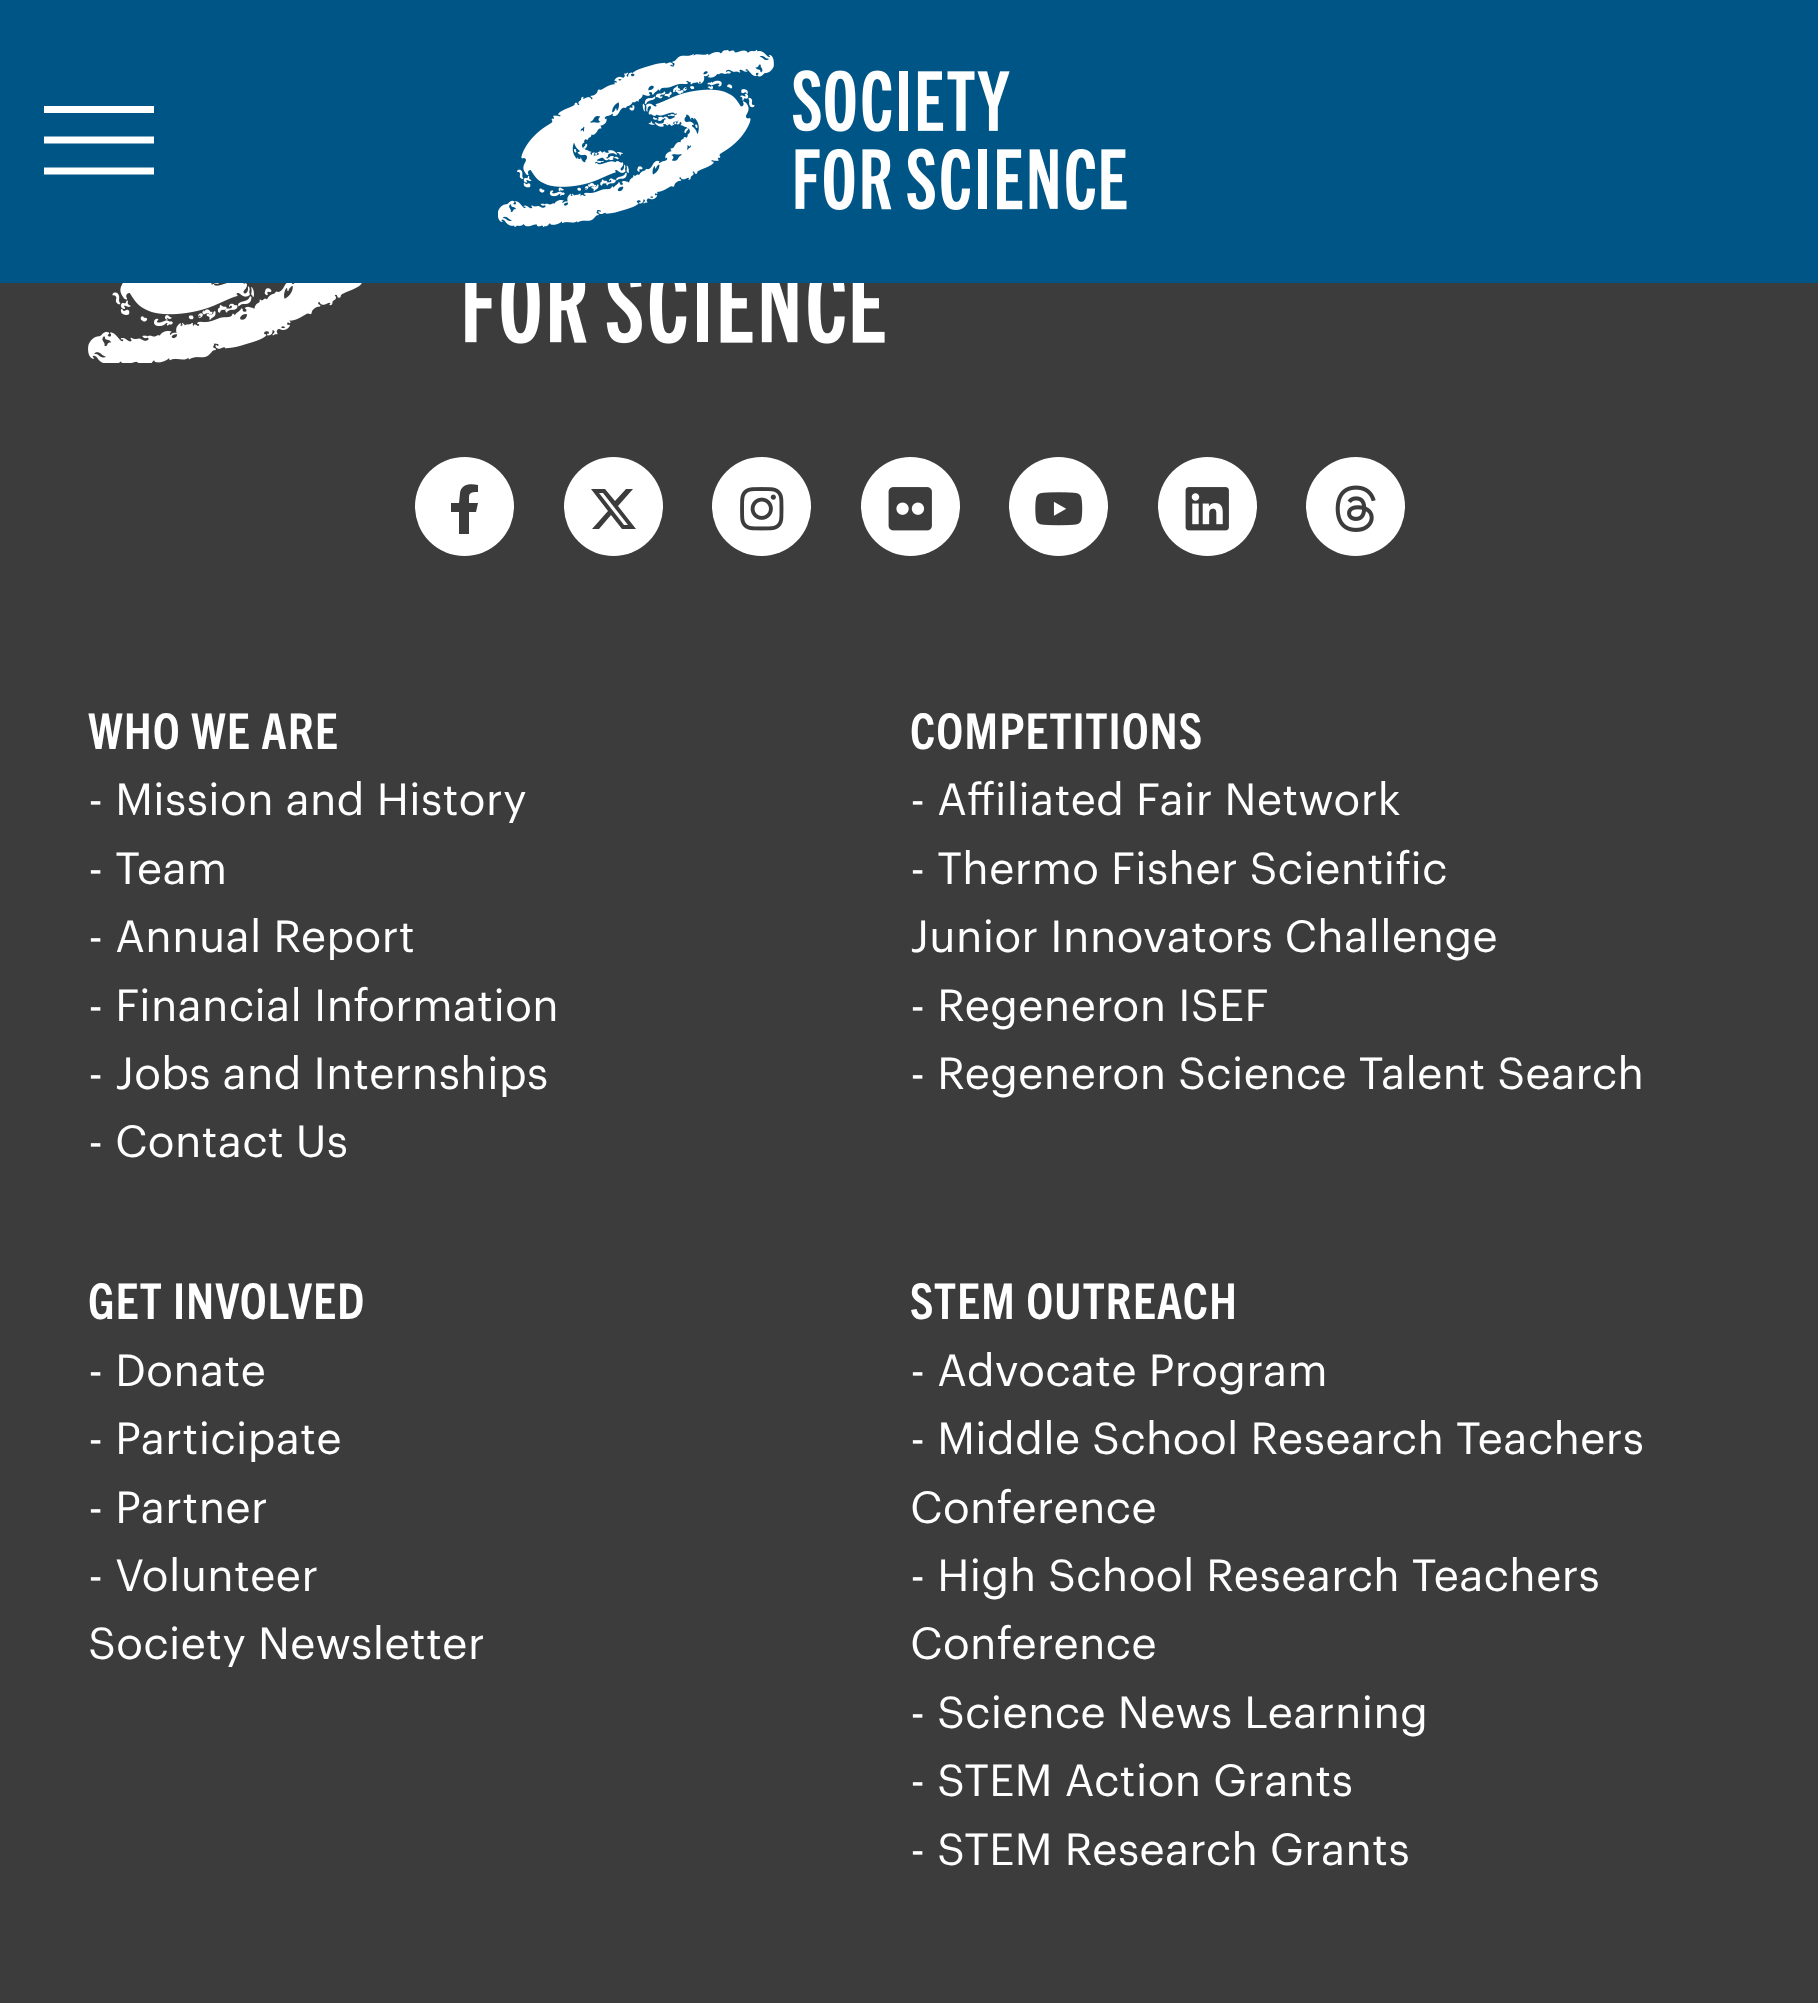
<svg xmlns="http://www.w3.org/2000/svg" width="1818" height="2003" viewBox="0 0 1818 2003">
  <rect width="100%" height="100%" fill="#3c3c3c"/>
  <path d="M0 0h1818v283H0z" fill="#005587"/>
  <path d="M44 171H154M44 140H154M44 109.5H154" fill="none" stroke="#fff" stroke-width="7"/>
  <image x="498" y="50" width="629" height="177" href="img/1.png"/>
  <image x="88" y="283" width="797" height="80" href="img/2.png"/>
  <circle cx="464.5" cy="506.5" r="49.5" fill="#fff"/>
  <path d="M476 512L478 503H469C469 494 468 492 478 492V485C470 483 461 484 460 493L459 503H451V512H459V534H469V512Z" fill="#3c3c3c"/>
  <circle cx="613.5" cy="506.5" r="49.5" fill="#fff"/>
  <path d="M626 489H633L618 506L636 529H622L611 515L599 529H592L608 511L591 489H605L615 501ZM624 525H628L603 493H599Z" fill="#3c3c3c"/>
  <circle cx="761.5" cy="506.5" r="49.5" fill="#fff"/>
  <image x="740" y="487" width="44" height="44" href="img/3.png"/>
  <circle cx="910.5" cy="506.5" r="49.5" fill="#fff"/>
  <image x="888" y="487" width="44" height="44" href="img/4.png"/>
  <circle cx="1058.5" cy="506.5" r="49.5" fill="#fff"/>
  <image x="1035" y="492" width="48" height="34" href="img/5.png"/>
  <circle cx="1207.5" cy="506.5" r="49.5" fill="#fff"/>
  <image x="1185" y="487" width="44" height="44" href="img/6.png"/>
  <circle cx="1355.5" cy="506.5" r="49.5" fill="#fff"/>
  <image x="1335" y="485" width="41" height="47" href="img/7.png"/>
  <text x="88" y="749" font-family="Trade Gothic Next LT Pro" font-size="49.5" font-weight="bold" letter-spacing="1" fill="#fff">WHO WE ARE</text>
  <g font-family="Graphik" font-size="44" fill="#fff">
    <text x="88" y="815">- Mission and History</text>
    <text x="88" y="884">- Team</text>
    <text x="88" y="952">- Annual Report</text>
    <text x="88" y="1021">- Financial Information</text>
    <text x="88" y="1089">- Jobs and Internships</text>
    <text x="88" y="1157">- Contact Us</text>
  </g>
  <text x="910" y="749" font-family="Trade Gothic Next LT Pro" font-size="49.5" font-weight="bold" letter-spacing="1" fill="#fff">COMPETITIONS</text>
  <g font-family="Graphik" font-size="44" fill="#fff">
    <text x="910" y="815">- Affiliated Fair Network</text>
    <text x="910" y="884">- Thermo Fisher Scientific</text>
    <text x="910" y="952">Junior Innovators Challenge</text>
    <text x="910" y="1021">- Regeneron ISEF</text>
    <text x="910" y="1089">- Regeneron Science Talent Search</text>
  </g>
  <text x="88" y="1319" font-family="Trade Gothic Next LT Pro" font-size="49.5" font-weight="bold" letter-spacing="1" fill="#fff">GET INVOLVED</text>
  <g font-family="Graphik" font-size="44" fill="#fff">
    <text x="88" y="1386">- Donate</text>
    <text x="88" y="1454">- Participate</text>
    <text x="88" y="1523">- Partner</text>
    <text x="88" y="1591">- Volunteer</text>
    <text x="88" y="1659">Society Newsletter</text>
  </g>
  <text x="910" y="1319" font-family="Trade Gothic Next LT Pro" font-size="49.5" font-weight="bold" letter-spacing="1" fill="#fff">STEM OUTREACH</text>
  <g font-family="Graphik" font-size="44" fill="#fff">
    <text x="910" y="1386">- Advocate Program</text>
    <text x="910" y="1454">- Middle School Research Teachers</text>
    <text x="910" y="1523">Conference</text>
    <text x="910" y="1591">- High School Research Teachers</text>
    <text x="910" y="1659">Conference</text>
    <text x="910" y="1728">- Science News Learning</text>
    <text x="910" y="1796">- STEM Action Grants</text>
    <text x="910" y="1865">- STEM Research Grants</text>
  </g>
</svg>
